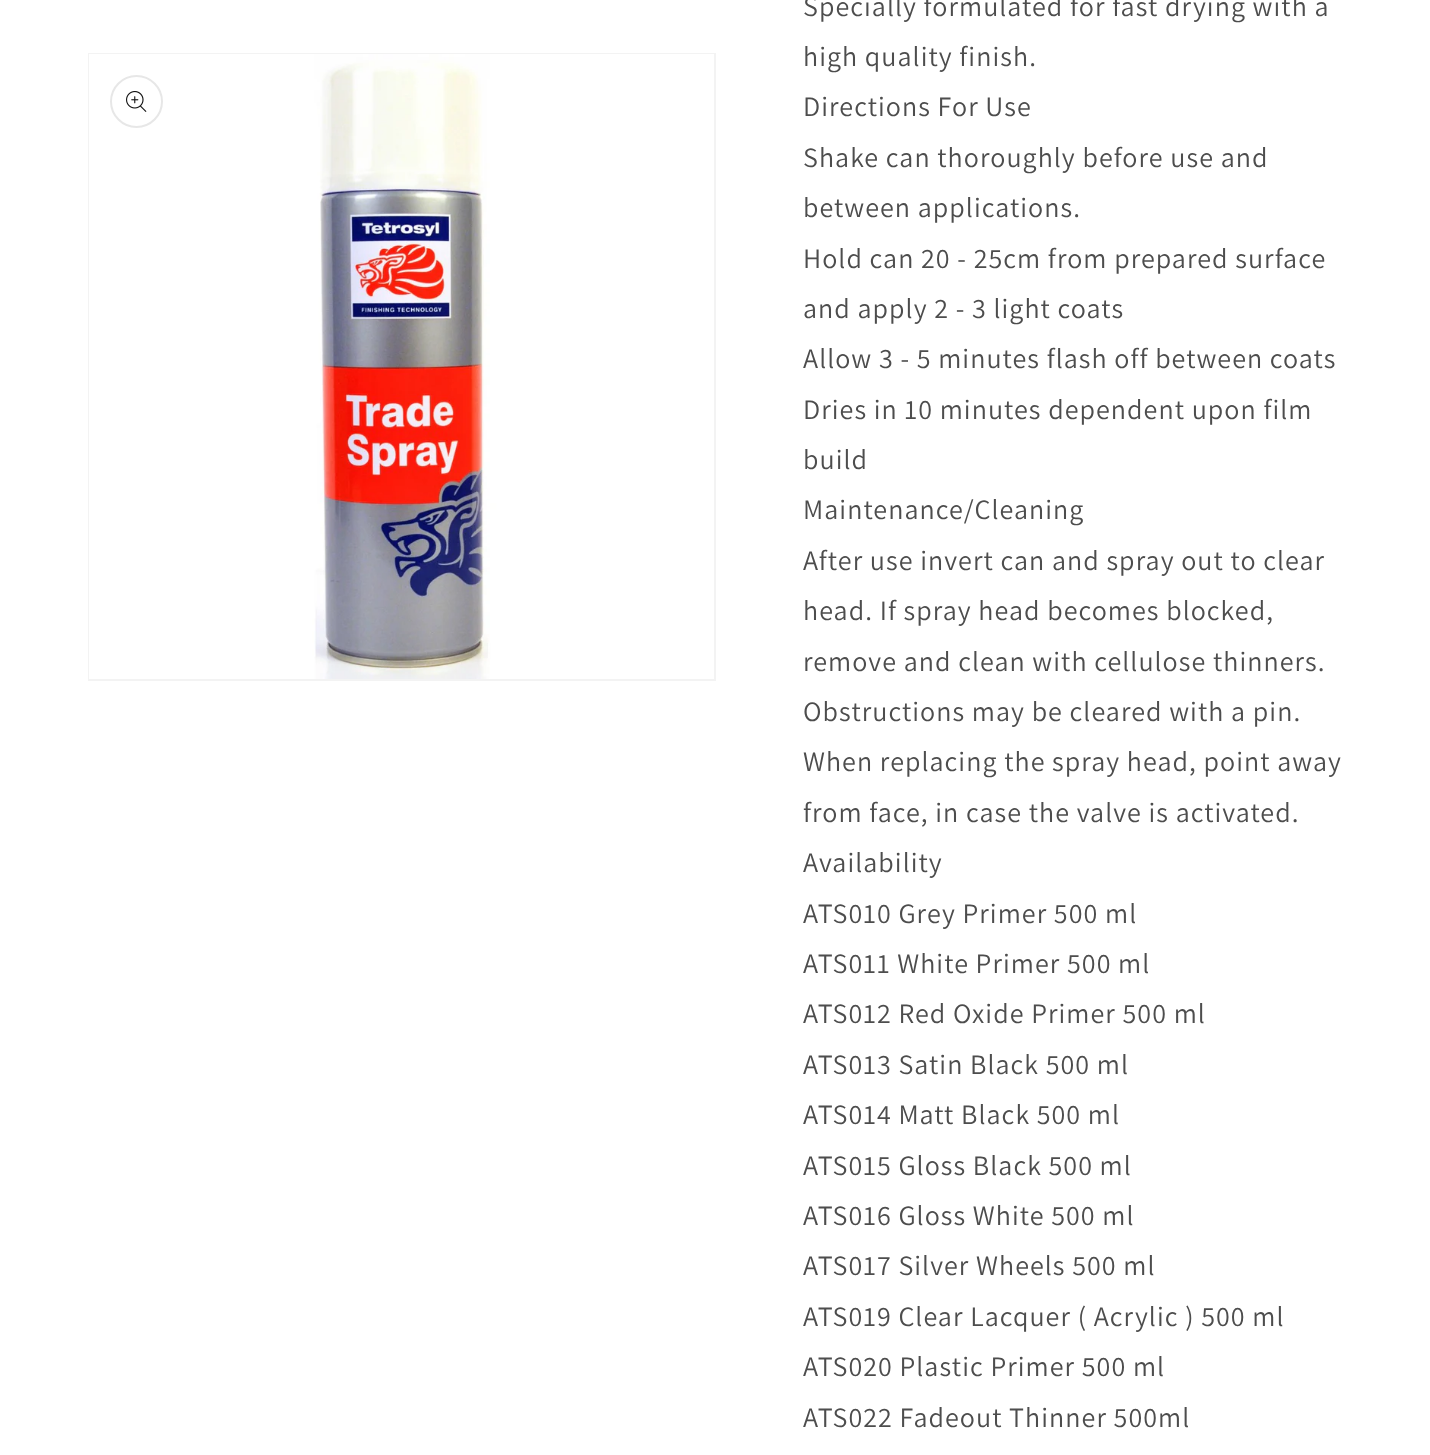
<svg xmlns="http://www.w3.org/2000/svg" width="1430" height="1455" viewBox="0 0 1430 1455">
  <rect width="100%" height="100%" fill="#fff"/>
  <path d="M89 54h626v626H89z" fill="none" stroke="#f3f3f3" stroke-width="2"/>
  <image x="89" y="54" width="625" height="625" href="img/1.png"/>
  <circle cx="136.5" cy="101.5" r="25.5" fill="none" stroke="#e7e7e7" stroke-width="2"/>
  <image x="126" y="91" width="21" height="21" href="img/2.png"/>
  <g font-family="Assistant" font-size="28" letter-spacing="1.05" fill="#4d4d4d">
    <text x="803" y="16">Specially formulated for fast drying with a</text>
    <text x="803" y="66">high quality finish.</text>
    <text x="803" y="116">Directions For Use</text>
    <text x="803" y="167">Shake can thoroughly before use and</text>
    <text x="803" y="217">between applications.</text>
    <text x="803" y="268">Hold can 20 - 25cm from prepared surface</text>
    <text x="803" y="318">and apply 2 - 3 light coats</text>
    <text x="803" y="368">Allow 3 - 5 minutes flash off between coats</text>
    <text x="803" y="419">Dries in 10 minutes dependent upon film</text>
    <text x="803" y="469">build</text>
    <text x="803" y="519">Maintenance/Cleaning</text>
    <text x="803" y="570">After use invert can and spray out to clear</text>
    <text x="803" y="620">head. If spray head becomes blocked,</text>
    <text x="803" y="671">remove and clean with cellulose thinners.</text>
    <text x="803" y="721">Obstructions may be cleared with a pin.</text>
    <text x="803" y="771">When replacing the spray head, point away</text>
    <text x="803" y="822">from face, in case the valve is activated.</text>
    <text x="803" y="872">Availability</text>
    <text x="803" y="923">ATS010 Grey Primer 500 ml</text>
    <text x="803" y="973">ATS011 White Primer 500 ml</text>
    <text x="803" y="1023">ATS012 Red Oxide Primer 500 ml</text>
    <text x="803" y="1074">ATS013 Satin Black 500 ml</text>
    <text x="803" y="1124">ATS014 Matt Black 500 ml</text>
    <text x="803" y="1175">ATS015 Gloss Black 500 ml</text>
    <text x="803" y="1225">ATS016 Gloss White 500 ml</text>
    <text x="803" y="1275">ATS017 Silver Wheels 500 ml</text>
    <text x="803" y="1326">ATS019 Clear Lacquer ( Acrylic ) 500 ml</text>
    <text x="803" y="1376">ATS020 Plastic Primer 500 ml</text>
    <text x="803" y="1427">ATS022 Fadeout Thinner 500ml</text>
  </g>
</svg>
